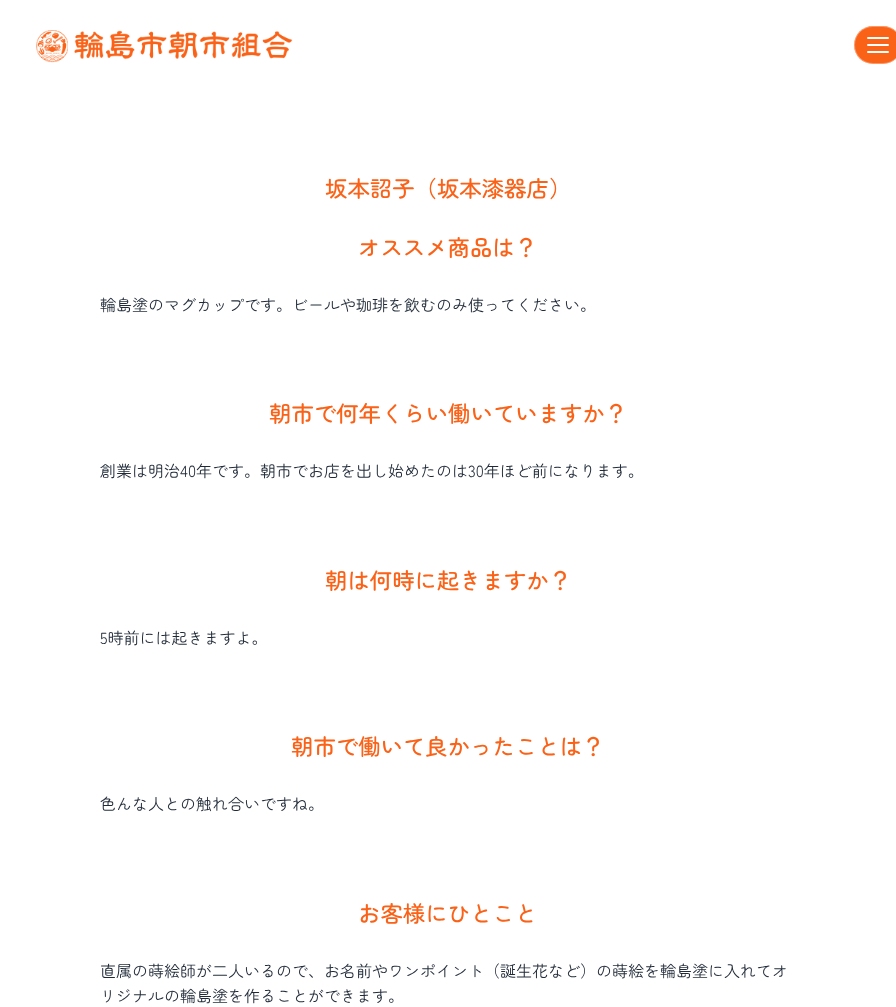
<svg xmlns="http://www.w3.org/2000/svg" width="896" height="1007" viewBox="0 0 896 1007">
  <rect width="100%" height="100%" fill="#fff"/>
  <image x="36" y="30" width="257" height="33" href="img/1.png"/>
  <rect x="854" y="26" width="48" height="38" rx="19" fill="#fa6218"/>
  <rect x="854.5" y="26.5" width="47" height="37" rx="18.5" fill="none" stroke="#ffffff59"/>
  <rect x="867" y="37" width="22" height="2" rx="1" fill="#fff"/>
  <rect x="867" y="44" width="22" height="2" rx="1" fill="#fff"/>
  <rect x="867" y="51" width="22" height="2" rx="1" fill="#fff"/>
  <g font-family="Zen Maru Gothic" font-size="22.4" font-weight="500" fill="#fa6218">
    <text x="325" y="197">坂本詔子（坂本漆器店）</text>
    <text x="358" y="256">オススメ商品は？</text>
  </g>
  <text x="100" y="311" font-family="Zen Maru Gothic" font-size="16" fill="#1f2937">輪島塗のマグカップです。ビールや珈琲を飲むのみ使ってください。</text>
  <text x="269" y="422" font-family="Zen Maru Gothic" font-size="22.4" font-weight="500" fill="#fa6218">朝市で何年くらい働いていますか？</text>
  <text x="100" y="477" font-family="Zen Maru Gothic" font-size="16" fill="#1f2937">創業は明治40年です。朝市でお店を出し始めたのは30年ほど前になります。</text>
  <text x="325" y="589" font-family="Zen Maru Gothic" font-size="22.4" font-weight="500" fill="#fa6218">朝は何時に起きますか？</text>
  <text x="100" y="644" font-family="Zen Maru Gothic" font-size="16" fill="#1f2937">5時前には起きますよ。</text>
  <text x="291" y="755" font-family="Zen Maru Gothic" font-size="22.4" font-weight="500" fill="#fa6218">朝市で働いて良かったことは？</text>
  <text x="100" y="810" font-family="Zen Maru Gothic" font-size="16" fill="#1f2937">色んな人との触れ合いですね。</text>
  <text x="358" y="922" font-family="Zen Maru Gothic" font-size="22.4" font-weight="500" fill="#fa6218">お客様にひとこと</text>
  <g font-family="Zen Maru Gothic" font-size="16" fill="#1f2937">
    <text x="100" y="977">直属の蒔絵師が二人いるので、お名前やワンポイント（誕生花など）の蒔絵を輪島塗に入れてオ</text>
    <text x="100" y="1002">リジナルの輪島塗を作ることができます。</text>
  </g>
</svg>
